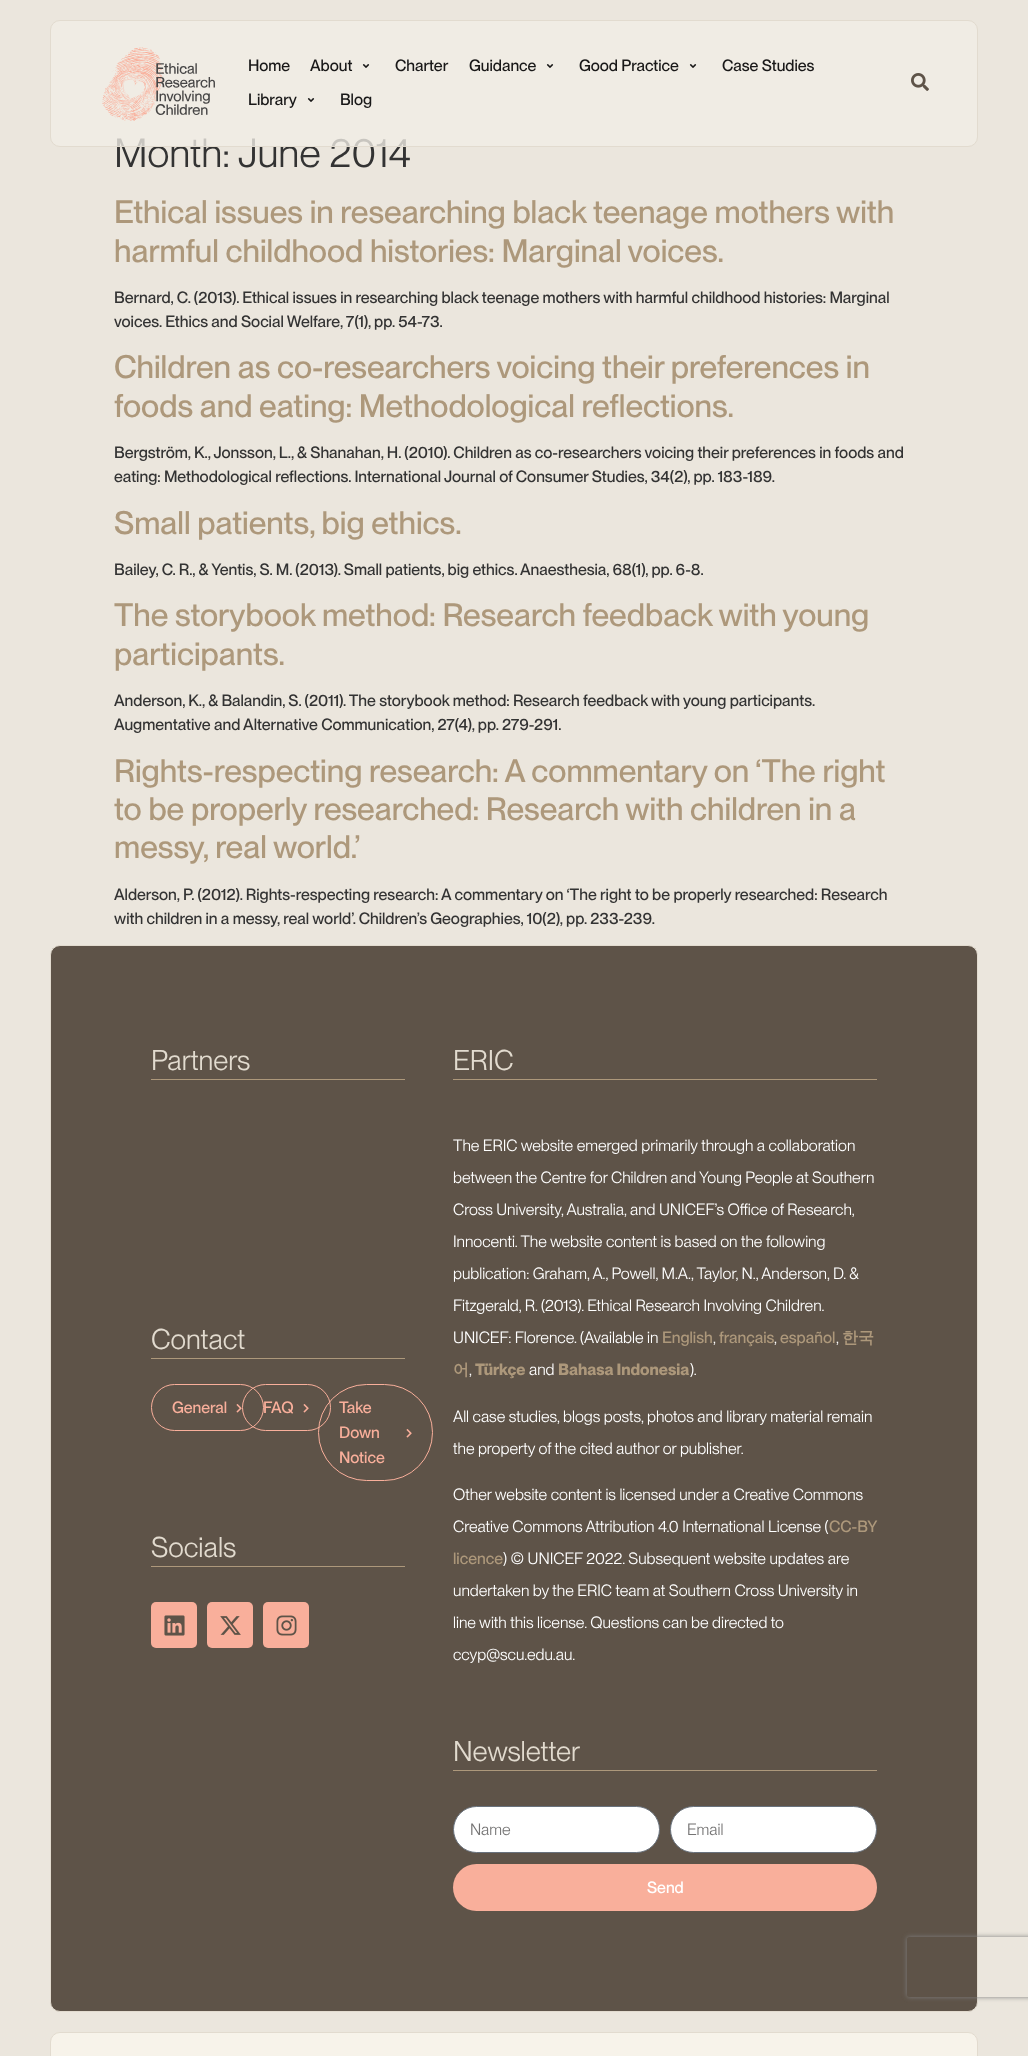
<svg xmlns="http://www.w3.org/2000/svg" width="1028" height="2056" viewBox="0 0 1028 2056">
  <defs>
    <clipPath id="clip1"><path d="M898 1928H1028V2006H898ZM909 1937H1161C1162 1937 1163 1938 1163 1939V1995C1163 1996 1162 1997 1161 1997H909C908 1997 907 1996 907 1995V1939C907 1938 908 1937 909 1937Z" clip-rule="evenodd"/></clipPath>
  </defs>
  <rect width="100%" height="100%" fill="#ebe6dd"/>
  <rect x="50.5" y="945.5" width="927" height="1066" rx="9.5" fill="#5e5348" stroke="#e2dbcf"/>
  <path d="M151 1079h254v1H151z" fill="#ad987b"/>
  <path d="M151 1358h254v1H151z" fill="#ad987b"/>
  <rect x="151.5" y="1384.5" width="112" height="46" rx="23" fill="none" stroke="#f9af9b"/>
  <image x="236" y="1404" width="6" height="9" href="img/4.png"/>
  <rect x="242.5" y="1384.5" width="88" height="46" rx="23" fill="none" stroke="#f9af9b"/>
  <image x="303" y="1404" width="6" height="9" href="img/4.png"/>
  <rect x="318.5" y="1384.5" width="114" height="96" rx="48" fill="none" stroke="#f9af9b"/>
  <image x="406" y="1429" width="6" height="9" href="img/4.png"/>
  <path d="M151 1566h254v1H151z" fill="#ad987b"/>
  <rect x="151" y="1602" width="46" height="46" rx="5" fill="#f9af9b"/>
  <image x="164" y="1615" width="21" height="21" href="img/5.png"/>
  <rect x="207" y="1602" width="46" height="46" rx="5" fill="#f9af9b"/>
  <image x="220" y="1616" width="21" height="19" href="img/6.png"/>
  <rect x="263" y="1602" width="46" height="46" rx="5" fill="#f9af9b"/>
  <image x="276" y="1615" width="21" height="21" href="img/7.png"/>
  <path d="M453 1079h424v1H453z" fill="#ad987b"/>
  <path d="M453 1770h424v1H453z" fill="#ad987b"/>
  <rect x="453.5" y="1806.5" width="206" height="46" rx="23" fill="#fff" stroke="#69727d"/>
  <rect x="670.5" y="1806.5" width="206" height="46" rx="23" fill="#fff" stroke="#69727d"/>
  <rect x="453" y="1864" width="424" height="47" rx="23.5" fill="#f9af9b"/>
  <g clip-path="url(#clip1)">
    <rect x="907" y="1937" width="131" height="60" rx="2" fill="#808080" filter="blur(2.5px)"/>
  </g>
  <rect x="50.5" y="2032.5" width="927" height="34" rx="9.5" fill="#f7f3ea" stroke="#e2dbcf"/>
  <g font-family="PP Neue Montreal" font-size="40" fill="#333">
    <text x="114" y="167">Month:</text>
    <text x="238" y="167">June 2014</text>
  </g>
  <rect x="50.5" y="20.5" width="927" height="126" rx="9.5" fill="#f1ede5c9" stroke="#e2dbcf"/>
  <image x="911" y="73" width="18" height="18" href="img/3.png"/>
  <g font-family="PP Neue Montreal" font-size="16" font-weight="500" fill="#191818">
    <text x="340" y="105">Blog</text>
    <text x="248" y="105">Library</text>
  </g>
  <image x="307" y="98" width="8" height="4" href="img/2.png"/>
  <g font-family="PP Neue Montreal" font-size="16" font-weight="500" fill="#191818">
    <text x="722" y="71">Case Studies</text>
    <text x="579" y="71">Good Practice</text>
  </g>
  <image x="689" y="64" width="8" height="4" href="img/2.png"/>
  <text x="469" y="71" font-family="PP Neue Montreal" font-size="16" font-weight="500" fill="#191818">Guidance</text>
  <image x="546" y="64" width="8" height="4" href="img/2.png"/>
  <g font-family="PP Neue Montreal" font-size="16" font-weight="500" fill="#191818">
    <text x="395" y="71">Charter</text>
    <text x="310" y="71">About</text>
  </g>
  <image x="362" y="64" width="8" height="4" href="img/2.png"/>
  <text x="248" y="71" font-family="PP Neue Montreal" font-size="16" font-weight="500" fill="#191818">Home</text>
  <image x="102" y="47" width="113" height="74" href="img/1.png"/>
  <g font-family="PP Neue Montreal" font-size="32" font-weight="500" fill="#ad987b">
    <text x="114" y="223">Ethical issues in researching black teenage mothers with</text>
    <text x="114" y="262">harmful childhood histories: Marginal voices.</text>
  </g>
  <g font-family="PP Neue Montreal" font-size="16" font-weight="500" fill="#333">
    <text x="114" y="303">Bernard, C. (2013). Ethical issues in researching black teenage mothers with harmful childhood histories: Marginal</text>
    <text x="114" y="327">voices. Ethics and Social Welfare, 7(1), pp. 54-73.</text>
  </g>
  <g font-family="PP Neue Montreal" font-size="32" font-weight="500" fill="#ad987b">
    <text x="114" y="378">Children as co-researchers voicing their preferences in</text>
    <text x="114" y="417">foods and eating: Methodological reflections.</text>
  </g>
  <g font-family="PP Neue Montreal" font-size="16" font-weight="500" fill="#333">
    <text x="114" y="458">Bergström, K., Jonsson, L., &amp; Shanahan, H. (2010). Children as co-researchers voicing their preferences in foods and</text>
    <text x="114" y="482">eating: Methodological reflections. International Journal of Consumer Studies, 34(2), pp. 183-189.</text>
  </g>
  <text x="114" y="534" font-family="PP Neue Montreal" font-size="32" font-weight="500" fill="#ad987b">Small patients, big ethics.</text>
  <text x="114" y="575" font-family="PP Neue Montreal" font-size="16" font-weight="500" fill="#333">Bailey, C. R., &amp; Yentis, S. M. (2013). Small patients, big ethics. Anaesthesia, 68(1), pp. 6-8.</text>
  <g font-family="PP Neue Montreal" font-size="32" font-weight="500" fill="#ad987b">
    <text x="114" y="626">The storybook method: Research feedback with young</text>
    <text x="114" y="665">participants.</text>
  </g>
  <g font-family="PP Neue Montreal" font-size="16" font-weight="500" fill="#333">
    <text x="114" y="706">Anderson, K., &amp; Balandin, S. (2011). The storybook method: Research feedback with young participants.</text>
    <text x="114" y="730">Augmentative and Alternative Communication, 27(4), pp. 279-291.</text>
  </g>
  <g font-family="PP Neue Montreal" font-size="32" font-weight="500" fill="#ad987b">
    <text x="114" y="782">Rights-respecting research: A commentary on ‘The right</text>
    <text x="114" y="820">to be properly researched: Research with children in a</text>
    <text x="114" y="858">messy, real world.’</text>
  </g>
  <g font-family="PP Neue Montreal" font-size="16" font-weight="500" fill="#333">
    <text x="114" y="900">Alderson, P. (2012). Rights-respecting research: A commentary on ‘The right to be properly researched: Research</text>
    <text x="114" y="924">with children in a messy, real world’. Children’s Geographies, 10(2), pp. 233-239.</text>
  </g>
  <g font-family="PP Neue Montreal" font-size="28" fill="#e2dbcf">
    <text x="151" y="1070">Partners</text>
    <text x="151" y="1349">Contact</text>
  </g>
  <g font-family="PP Neue Montreal" font-size="16" font-weight="500" fill="#f9af9b">
    <text x="172" y="1413">General</text>
    <text x="263" y="1413">FAQ</text>
    <text x="339" y="1413">Take</text>
    <text x="339" y="1438">Down</text>
    <text x="339" y="1463">Notice</text>
  </g>
  <g font-family="PP Neue Montreal" font-size="28" fill="#e2dbcf">
    <text x="151" y="1557">Socials</text>
    <text x="453" y="1070">ERIC</text>
  </g>
  <g font-family="PP Neue Montreal" font-size="16" fill="#fff">
    <text x="453" y="1151">The ERIC website emerged primarily through a collaboration</text>
    <text x="453" y="1183">between the Centre for Children and Young People at Southern</text>
    <text x="453" y="1215">Cross University, Australia, and UNICEF’s Office of Research,</text>
    <text x="453" y="1247">Innocenti. The website content is based on the following</text>
    <text x="453" y="1279">publication: Graham, A., Powell, M.A., Taylor, N., Anderson, D. &amp;</text>
    <text x="453" y="1311">Fitzgerald, R. (2013). Ethical Research Involving Children.</text>
    <text x="453" y="1343">UNICEF: Florence. (Available in</text>
  </g>
  <text x="662" y="1343" font-family="PP Neue Montreal" font-size="16" font-weight="500" fill="#ad987b">English</text>
  <text x="713" y="1343" font-family="PP Neue Montreal" font-size="16" fill="#fff">,</text>
  <text x="719" y="1343" font-family="PP Neue Montreal" font-size="16" font-weight="500" fill="#ad987b">français</text>
  <text x="774" y="1343" font-family="PP Neue Montreal" font-size="16" fill="#fff">,</text>
  <text x="780" y="1343" font-family="PP Neue Montreal" font-size="16" font-weight="500" fill="#ad987b">español</text>
  <text x="836" y="1343" font-family="PP Neue Montreal" font-size="16" fill="#fff">,</text>
  <g font-family="WenQuanYi Zen Hei" font-size="16" font-weight="bold" fill="#ad987b">
    <text x="842" y="1343">한국</text>
    <text x="453" y="1375">어</text>
  </g>
  <text x="469" y="1375" font-family="PP Neue Montreal" font-size="16" fill="#fff">,</text>
  <text x="475" y="1375" font-family="PP Neue Montreal" font-size="16" font-weight="bold" fill="#ad987b">Türkçe</text>
  <text x="529" y="1375" font-family="PP Neue Montreal" font-size="16" fill="#fff">and</text>
  <text x="558" y="1375" font-family="PP Neue Montreal" font-size="16" font-weight="bold" fill="#ad987b">Bahasa Indonesia</text>
  <g font-family="PP Neue Montreal" font-size="16" fill="#fff">
    <text x="690" y="1375">).</text>
    <text x="453" y="1422">All case studies, blogs posts, photos and library material remain</text>
    <text x="453" y="1454">the property of the cited author or publisher.</text>
    <text x="453" y="1500">Other website content is licensed under a Creative Commons</text>
    <text x="453" y="1532">Creative Commons Attribution 4.0 International License (</text>
  </g>
  <g font-family="PP Neue Montreal" font-size="16" font-weight="500" fill="#ad987b">
    <text x="829" y="1532">CC-BY</text>
    <text x="453" y="1564">licence</text>
  </g>
  <g font-family="PP Neue Montreal" font-size="16" fill="#fff">
    <text x="503" y="1564">) © UNICEF 2022. Subsequent website updates are</text>
    <text x="453" y="1596">undertaken by the ERIC team at Southern Cross University in</text>
    <text x="453" y="1628">line with this license. Questions can be directed to</text>
    <text x="453" y="1660">ccyp@scu.edu.au.</text>
  </g>
  <text x="453" y="1761" font-family="PP Neue Montreal" font-size="28" fill="#e2dbcf">Newsletter</text>
  <g font-family="PP Neue Montreal" font-size="16" fill="#757474">
    <text x="470" y="1835">Name</text>
    <text x="687" y="1835">Email</text>
  </g>
  <text x="647" y="1893" font-family="PP Neue Montreal" font-size="16" font-weight="500" fill="#fff">Send</text>
</svg>
